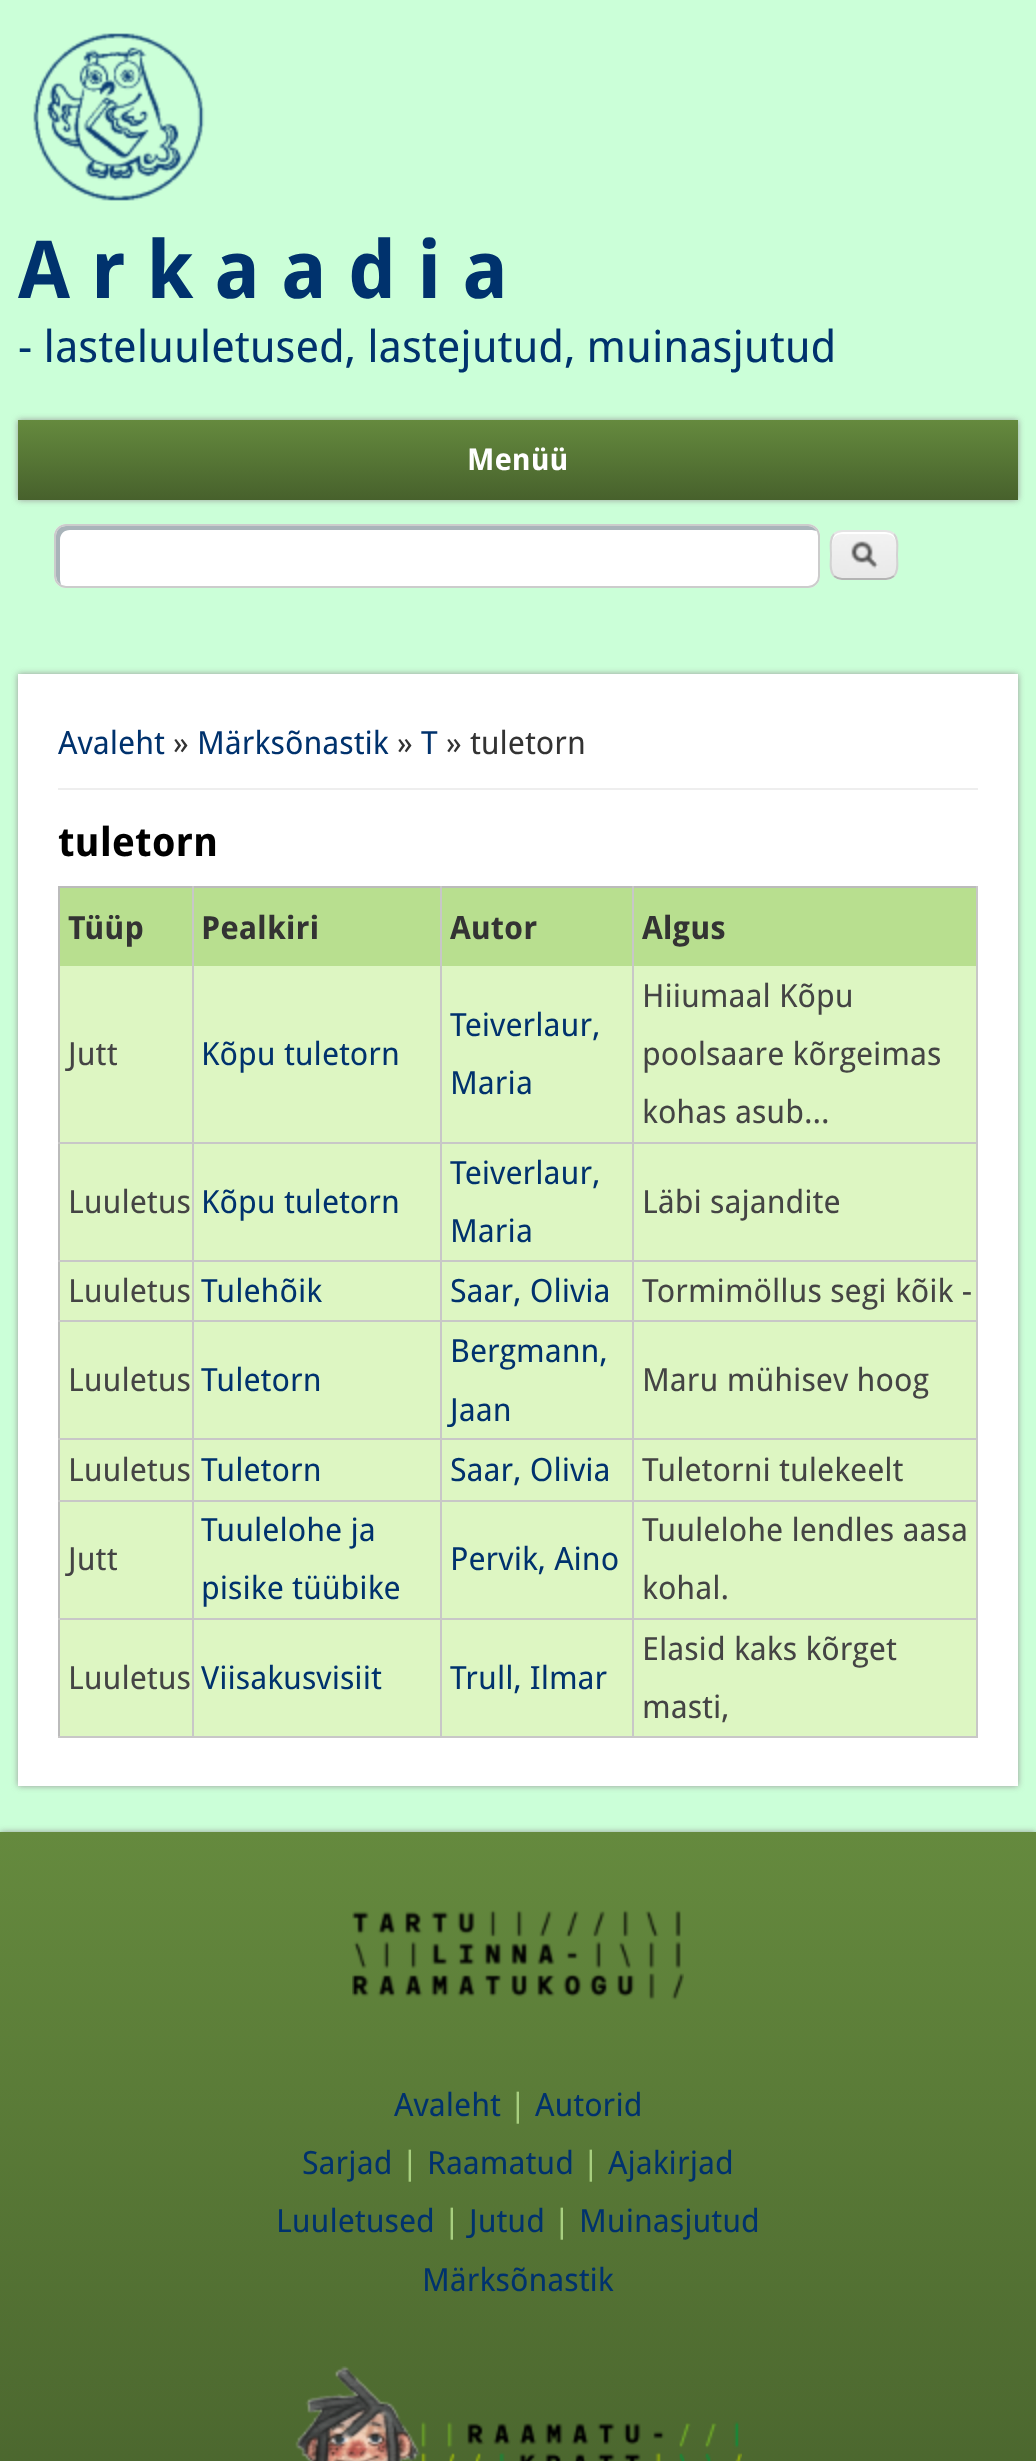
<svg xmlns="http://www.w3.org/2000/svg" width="1036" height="2461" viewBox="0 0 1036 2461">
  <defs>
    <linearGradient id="g1" gradientUnits="userSpaceOnUse" x1="518" y1="420" x2="518" y2="580"><stop offset="0" stop-color="#658a3e"/><stop offset="0.5" stop-color="#47612c"/><stop offset="0.5" stop-color="#658a3e"/><stop offset="1" stop-color="#47612c"/></linearGradient>
    <linearGradient id="g2" gradientUnits="userSpaceOnUse" x1="518" y1="1832" x2="518" y2="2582"><stop offset="0" stop-color="#658a3e"/><stop offset="1" stop-color="#47612c"/></linearGradient>
  </defs>
  <rect width="100%" height="100%" fill="#cbffd8"/>
  <image x="33" y="33" width="172" height="168" href="img/1.png"/>
  <path d="M18 420h1000v80H18z" fill="#999" filter="blur(3px)"/>
  <path d="M18 420h1000v80H18z" fill="url(#g1)"/>
  <rect x="54" y="524" width="766" height="64" rx="12" fill="#fff"/>
  <path d="M70 530H812L817 531C815 528 812 526 808 526H66C60 526 56 530 56 536V576C56 580 58 583 61 585L60 580V540C60 534 64 530 70 530Z" fill="#a9b4ba"/>
  <rect x="55" y="525" width="764" height="62" rx="11" fill="none" stroke="#ccc" stroke-width="2"/>
  <image x="830" y="532" width="68" height="48" href="img/2.png"/>
  <path d="M842 534H886C892 534 896 538 896 544C896 532 889 532 879 532H849C839 532 832 532 832 544C832 538 836 534 842 534Z" fill="#fff"/>
  <path d="M834 534C836.5 532 839 531 842 531H886C889 531 891.5 532 894 534" fill="none" stroke="#e4e4e4" stroke-width="2"/>
  <path d="M894 534C899 539.5 897 548.5 897 555C897 561.5 899 570.5 894 576" fill="none" stroke="#d2d2d2" stroke-width="2"/>
  <path d="M894 576C891.5 578 889 579 886 579H842C839 579 836.5 578 834 576" fill="none" stroke="#b4b4b4" stroke-width="2"/>
  <path d="M834 576C829 570.5 831 561.5 831 555C831 548.5 829 539.5 834 534" fill="none" stroke="#d2d2d2" stroke-width="2"/>
  <path d="M18 674h1000v1112H18z" fill="#999" filter="blur(3px)"/>
  <path d="M18 674h1000v1112H18z" fill="#fff"/>
  <path d="M58 788h920v2H58z" fill="#eee"/>
  <path d="M58 886h920v2H58z" fill="#bbb"/>
  <path d="M58 886h2v852H58z" fill="#bbb"/>
  <path d="M60 888h132v78H60z" fill="#b8df8f"/>
  <path d="M194 888h246v78H194z" fill="#b8df8f"/>
  <path d="M442 888h190v78H442z" fill="#b8df8f"/>
  <path d="M634 888h342v78H634z" fill="#b8df8f"/>
  <path d="M60 966h132v176H60z" fill="#ddf6c2"/>
  <path d="M976 886h2v852H976z" fill="#c8c7c7"/>
  <path d="M632 1736h346v2H632z" fill="#c8c7c7"/>
  <path d="M632 1618h2v120H632z" fill="#c8c7c7"/>
  <path d="M632 1618h346v2H632z" fill="#c8c7c7"/>
  <path d="M632 1500h2v120H632z" fill="#c8c7c7"/>
  <path d="M632 1500h346v2H632z" fill="#c8c7c7"/>
  <path d="M632 1438h2v64H632z" fill="#c8c7c7"/>
  <path d="M632 1438h346v2H632z" fill="#c8c7c7"/>
  <path d="M632 1320h2v120H632z" fill="#c8c7c7"/>
  <path d="M632 1320h346v2H632z" fill="#c8c7c7"/>
  <path d="M632 1260h2v62H632z" fill="#c8c7c7"/>
  <path d="M632 1260h346v2H632z" fill="#c8c7c7"/>
  <path d="M632 1142h2v120H632z" fill="#c8c7c7"/>
  <path d="M632 1142h346v2H632z" fill="#c8c7c7"/>
  <path d="M632 886h2v258H632z" fill="#c8c7c7"/>
  <path d="M440 1736h194v2H440z" fill="#c8c7c7"/>
  <path d="M440 1618h2v120H440z" fill="#c8c7c7"/>
  <path d="M440 1618h194v2H440z" fill="#c8c7c7"/>
  <path d="M440 1500h2v120H440z" fill="#c8c7c7"/>
  <path d="M440 1500h194v2H440z" fill="#c8c7c7"/>
  <path d="M440 1438h2v64H440z" fill="#c8c7c7"/>
  <path d="M440 1438h194v2H440z" fill="#c8c7c7"/>
  <path d="M440 1320h2v120H440z" fill="#c8c7c7"/>
  <path d="M440 1320h194v2H440z" fill="#c8c7c7"/>
  <path d="M440 1260h2v62H440z" fill="#c8c7c7"/>
  <path d="M440 1260h194v2H440z" fill="#c8c7c7"/>
  <path d="M440 1142h2v120H440z" fill="#c8c7c7"/>
  <path d="M440 1142h194v2H440z" fill="#c8c7c7"/>
  <path d="M440 886h2v258H440z" fill="#c8c7c7"/>
  <path d="M192 1736h250v2H192z" fill="#c8c7c7"/>
  <path d="M192 1618h2v120H192z" fill="#c8c7c7"/>
  <path d="M192 1618h250v2H192z" fill="#c8c7c7"/>
  <path d="M192 1500h2v120H192z" fill="#c8c7c7"/>
  <path d="M192 1500h250v2H192z" fill="#c8c7c7"/>
  <path d="M192 1438h2v64H192z" fill="#c8c7c7"/>
  <path d="M192 1438h250v2H192z" fill="#c8c7c7"/>
  <path d="M192 1320h2v120H192z" fill="#c8c7c7"/>
  <path d="M192 1320h250v2H192z" fill="#c8c7c7"/>
  <path d="M192 1260h2v62H192z" fill="#c8c7c7"/>
  <path d="M192 1260h250v2H192z" fill="#c8c7c7"/>
  <path d="M192 1142h2v120H192z" fill="#c8c7c7"/>
  <path d="M192 1142h250v2H192z" fill="#c8c7c7"/>
  <path d="M192 886h2v258H192z" fill="#c8c7c7"/>
  <path d="M58 1142h136v2H58z" fill="#c8c7c7"/>
  <path d="M194 966h246v176H194z" fill="#ddf6c2"/>
  <path d="M442 966h190v176H442z" fill="#ddf6c2"/>
  <path d="M634 966h342v176H634z" fill="#ddf6c2"/>
  <path d="M60 1144h132v116H60z" fill="#ddf6c2"/>
  <path d="M58 1260h136v2H58z" fill="#c8c7c7"/>
  <path d="M194 1144h246v116H194z" fill="#ddf6c2"/>
  <path d="M442 1144h190v116H442z" fill="#ddf6c2"/>
  <path d="M634 1144h342v116H634z" fill="#ddf6c2"/>
  <path d="M60 1262h132v58H60z" fill="#ddf6c2"/>
  <path d="M58 1320h136v2H58z" fill="#c8c7c7"/>
  <path d="M194 1262h246v58H194z" fill="#ddf6c2"/>
  <path d="M442 1262h190v58H442z" fill="#ddf6c2"/>
  <path d="M634 1262h342v58H634z" fill="#ddf6c2"/>
  <path d="M60 1322h132v116H60z" fill="#ddf6c2"/>
  <path d="M58 1438h136v2H58z" fill="#c8c7c7"/>
  <path d="M194 1322h246v116H194z" fill="#ddf6c2"/>
  <path d="M442 1322h190v116H442z" fill="#ddf6c2"/>
  <path d="M634 1322h342v116H634z" fill="#ddf6c2"/>
  <path d="M60 1440h132v60H60z" fill="#ddf6c2"/>
  <path d="M58 1500h136v2H58z" fill="#c8c7c7"/>
  <path d="M194 1440h246v60H194z" fill="#ddf6c2"/>
  <path d="M442 1440h190v60H442z" fill="#ddf6c2"/>
  <path d="M634 1440h342v60H634z" fill="#ddf6c2"/>
  <path d="M60 1502h132v116H60z" fill="#ddf6c2"/>
  <path d="M58 1618h136v2H58z" fill="#c8c7c7"/>
  <path d="M194 1502h246v116H194z" fill="#ddf6c2"/>
  <path d="M442 1502h190v116H442z" fill="#ddf6c2"/>
  <path d="M634 1502h342v116H634z" fill="#ddf6c2"/>
  <path d="M60 1620h132v116H60z" fill="#ddf6c2"/>
  <path d="M58 1736h136v2H58z" fill="#c8c7c7"/>
  <path d="M194 1620h246v116H194z" fill="#ddf6c2"/>
  <path d="M442 1620h190v116H442z" fill="#ddf6c2"/>
  <path d="M634 1620h342v116H634z" fill="#ddf6c2"/>
  <path d="M0 1832h1036v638H0z" fill="#999" filter="blur(3px)"/>
  <path d="M0 1832h1036v629H0z" fill="url(#g2)"/>
  <image x="352" y="1910" width="332" height="90" href="img/3.png"/>
  <image x="295" y="2366" width="447" height="95" href="img/4.png"/>
  <text x="18" y="298" font-family="Droid Sans" font-size="80" font-weight="bold" fill="#00326d">A r k a a d i a</text>
  <text x="18" y="362" font-family="Droid Sans" font-size="44" fill="#00326d">- lasteluuletused, lastejutud, muinasjutud</text>
  <text x="467" y="470" font-family="Droid Sans" font-size="30" font-weight="bold" fill="#fff">Menüü</text>
  <text x="58" y="754" font-family="Droid Sans" font-size="32" fill="#00326d">Avaleht</text>
  <text x="173" y="754" font-family="Droid Sans" font-size="32" fill="#333">»</text>
  <text x="197" y="754" font-family="Droid Sans" font-size="32" fill="#00326d">Märksõnastik</text>
  <text x="397" y="754" font-family="Droid Sans" font-size="32" fill="#333">»</text>
  <text x="421" y="754" font-family="Droid Sans" font-size="32" fill="#00326d">T</text>
  <text x="446" y="754" font-family="Droid Sans" font-size="32" fill="#333">» tuletorn</text>
  <text x="58" y="856" font-family="Droid Sans" font-size="40" font-weight="bold" fill="#000">tuletorn</text>
  <g font-family="Droid Sans" font-size="32" font-weight="bold" fill="#333">
    <text x="68" y="939">Tüüp</text>
    <text x="201" y="939">Pealkiri</text>
    <text x="450" y="939">Autor</text>
    <text x="642" y="939">Algus</text>
  </g>
  <text x="68" y="1065" font-family="Droid Sans" font-size="32" fill="#444">Jutt</text>
  <g font-family="Droid Sans" font-size="32" fill="#00326d">
    <text x="201" y="1065">Kõpu tuletorn</text>
    <text x="450" y="1036">Teiverlaur,</text>
    <text x="450" y="1094">Maria</text>
  </g>
  <g font-family="Droid Sans" font-size="32" fill="#444">
    <text x="642" y="1007">Hiiumaal Kõpu</text>
    <text x="642" y="1065">poolsaare kõrgeimas</text>
    <text x="642" y="1123">kohas asub...</text>
    <text x="68" y="1213">Luuletus</text>
  </g>
  <g font-family="Droid Sans" font-size="32" fill="#00326d">
    <text x="201" y="1213">Kõpu tuletorn</text>
    <text x="450" y="1184">Teiverlaur,</text>
    <text x="450" y="1242">Maria</text>
  </g>
  <g font-family="Droid Sans" font-size="32" fill="#444">
    <text x="642" y="1213">Läbi sajandite</text>
    <text x="68" y="1302">Luuletus</text>
  </g>
  <g font-family="Droid Sans" font-size="32" fill="#00326d">
    <text x="201" y="1302">Tulehõik</text>
    <text x="450" y="1302">Saar, Olivia</text>
  </g>
  <g font-family="Droid Sans" font-size="32" fill="#444">
    <text x="642" y="1302">Tormimöllus segi kõik -</text>
    <text x="68" y="1391">Luuletus</text>
  </g>
  <g font-family="Droid Sans" font-size="32" fill="#00326d">
    <text x="201" y="1391">Tuletorn</text>
    <text x="450" y="1362">Bergmann,</text>
    <text x="450" y="1421">Jaan</text>
  </g>
  <g font-family="Droid Sans" font-size="32" fill="#444">
    <text x="642" y="1391">Maru mühisev hoog</text>
    <text x="68" y="1481">Luuletus</text>
  </g>
  <g font-family="Droid Sans" font-size="32" fill="#00326d">
    <text x="201" y="1481">Tuletorn</text>
    <text x="450" y="1481">Saar, Olivia</text>
  </g>
  <g font-family="Droid Sans" font-size="32" fill="#444">
    <text x="642" y="1481">Tuletorni tulekeelt</text>
    <text x="68" y="1570">Jutt</text>
  </g>
  <g font-family="Droid Sans" font-size="32" fill="#00326d">
    <text x="201" y="1541">Tuulelohe ja</text>
    <text x="201" y="1599">pisike tüübike</text>
    <text x="450" y="1570">Pervik, Aino</text>
  </g>
  <g font-family="Droid Sans" font-size="32" fill="#444">
    <text x="642" y="1541">Tuulelohe lendles aasa</text>
    <text x="642" y="1599">kohal.</text>
    <text x="68" y="1689">Luuletus</text>
  </g>
  <g font-family="Droid Sans" font-size="32" fill="#00326d">
    <text x="201" y="1689">Viisakusvisiit</text>
    <text x="450" y="1689">Trull, Ilmar</text>
  </g>
  <g font-family="Droid Sans" font-size="32" fill="#444">
    <text x="642" y="1660">Elasid kaks kõrget</text>
    <text x="642" y="1718">masti,</text>
  </g>
  <text x="394" y="2116" font-family="Droid Sans" font-size="32" fill="#00326d">Avaleht</text>
  <text x="509" y="2116" font-family="Droid Sans" font-size="32" fill="#a8cf7f">|</text>
  <g font-family="Droid Sans" font-size="32" fill="#00326d">
    <text x="535" y="2116">Autorid</text>
    <text x="302" y="2174">Sarjad</text>
  </g>
  <text x="401" y="2174" font-family="Droid Sans" font-size="32" fill="#a8cf7f">|</text>
  <text x="427" y="2174" font-family="Droid Sans" font-size="32" fill="#00326d">Raamatud</text>
  <text x="582" y="2174" font-family="Droid Sans" font-size="32" fill="#a8cf7f">|</text>
  <g font-family="Droid Sans" font-size="32" fill="#00326d">
    <text x="608" y="2174">Ajakirjad</text>
    <text x="276" y="2232">Luuletused</text>
  </g>
  <text x="443" y="2232" font-family="Droid Sans" font-size="32" fill="#a8cf7f">|</text>
  <text x="469" y="2232" font-family="Droid Sans" font-size="32" fill="#00326d">Jutud</text>
  <text x="553" y="2232" font-family="Droid Sans" font-size="32" fill="#a8cf7f">|</text>
  <g font-family="Droid Sans" font-size="32" fill="#00326d">
    <text x="579" y="2232">Muinasjutud</text>
    <text x="422" y="2291">Märksõnastik</text>
  </g>
</svg>
